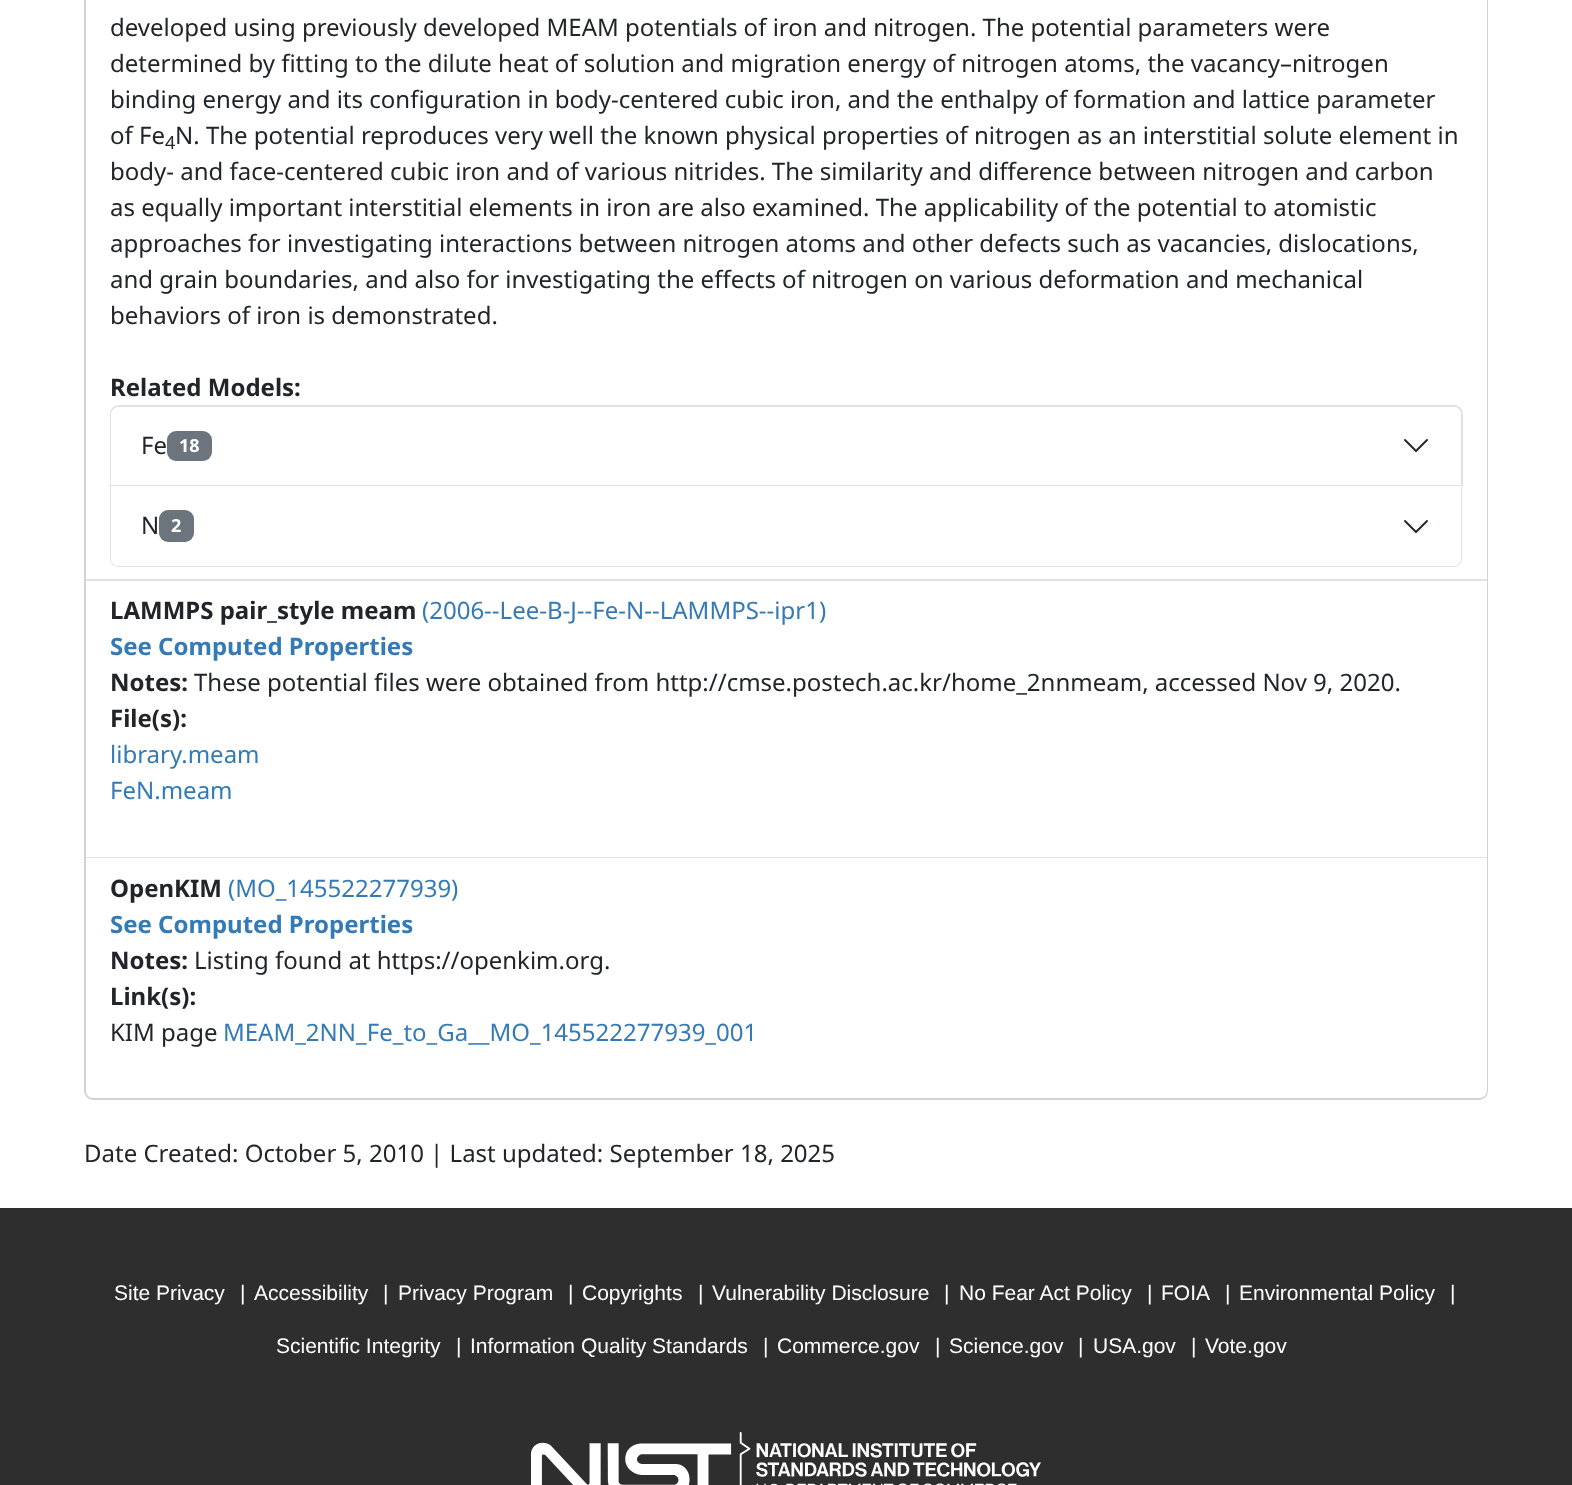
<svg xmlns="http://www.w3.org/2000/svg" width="1572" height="1485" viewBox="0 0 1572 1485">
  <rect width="100%" height="100%" fill="#fff"/>
  <rect x="85" y="-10" width="1402" height="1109" rx="8" fill="none" stroke="#d2d2d2" stroke-width="2"/>
  <path d="M1486 0h1v579H1486z" fill="#fff"/>
  <path d="M86 579h1401v2H86z" fill="#dee2e6"/>
  <path d="M119 406H1454C1458.5 406 1462 409.5 1462 414V485H111V414C111 409.5 114.5 406 119 406Z" fill="none" stroke="#dee2e6" stroke-width="2"/>
  <path d="M119 407H1453C1457.5 407 1461 410.5 1461 415V485H111V415C111 410.5 114.5 407 119 407Z" fill="#fff"/>
  <rect x="167" y="431" width="45" height="30" rx="9" fill="#6c757d"/>
  <path d="M1405 440L1416 451L1427 440" fill="none" stroke="#212529" stroke-width="1.9" stroke-linecap="round" stroke-linejoin="round"/>
  <path d="M110 486H1462V558C1462 563 1458 567 1454 567H118C114 567 110 563 110 558ZM111 486H1461V558C1461 562 1458 566 1454 566H118C114 566 111 562 111 558Z" fill="#dee2e6" fill-rule="evenodd"/>
  <path d="M111 486H1461V558C1461 562.5 1457.5 566 1453 566H119C114.5 566 111 562.5 111 558Z" fill="#fff"/>
  <rect x="159" y="510" width="35" height="32" rx="9" fill="#6c757d"/>
  <path d="M1405 521L1416 532L1427 521" fill="none" stroke="#212529" stroke-width="1.9" stroke-linecap="round" stroke-linejoin="round"/>
  <path d="M1486 581h1v276H1486z" fill="#fff"/>
  <path d="M86 857h1401v1H86z" fill="#dee2e6"/>
  <path d="M86 858H1487V1090C1487 1094.5 1483.5 1098 1479 1098H94C89.5 1098 86 1094.5 86 1090Z" fill="#fff"/>
  <path d="M0 1208h1572v277H0z" fill="#2e2e2e"/>
  <image x="531" y="1432" width="510" height="53" href="img/1.png"/>
  <g font-family="Noto Sans" font-size="24" fill="#212529">
    <text x="110" y="36">developed using previously developed MEAM potentials of iron and nitrogen. The potential parameters were</text>
    <text x="110" y="72">determined by fitting to the dilute heat of solution and migration energy of nitrogen atoms, the vacancy–nitrogen</text>
    <text x="110" y="108">binding energy and its configuration in body-centered cubic iron, and the enthalpy of formation and lattice parameter</text>
    <text x="110" y="144">of Fe</text>
  </g>
  <text x="165" y="149" font-family="Noto Sans" font-size="18" fill="#212529">4</text>
  <g font-family="Noto Sans" font-size="24" fill="#212529">
    <text x="175" y="144">N. The potential reproduces very well the known physical properties of nitrogen as an interstitial solute element in</text>
    <text x="110" y="180">body- and face-centered cubic iron and of various nitrides. The similarity and difference between nitrogen and carbon</text>
    <text x="110" y="216">as equally important interstitial elements in iron are also examined. The applicability of the potential to atomistic</text>
    <text x="110" y="252">approaches for investigating interactions between nitrogen atoms and other defects such as vacancies, dislocations,</text>
    <text x="110" y="288">and grain boundaries, and also for investigating the effects of nitrogen on various deformation and mechanical</text>
    <text x="110" y="324">behaviors of iron is demonstrated.</text>
  </g>
  <text x="110" y="396" font-family="Noto Sans" font-size="24" font-weight="bold" fill="#212529">Related Models:</text>
  <text x="141" y="454" font-family="Noto Sans" font-size="24" fill="#212529">Fe</text>
  <text x="179" y="452" font-family="Noto Sans" font-size="18" font-weight="bold" fill="#fff">18</text>
  <text x="141" y="534" font-family="Noto Sans" font-size="24" fill="#212529">N</text>
  <text x="171" y="532" font-family="Noto Sans" font-size="18" font-weight="bold" fill="#fff">2</text>
  <text x="110" y="619" font-family="Noto Sans" font-size="24" font-weight="bold" fill="#212529">LAMMPS pair_style meam</text>
  <text x="422" y="619" font-family="Noto Sans" font-size="24" fill="#337ab7">(2006--Lee-B-J--Fe-N--LAMMPS--ipr1)</text>
  <text x="110" y="655" font-family="Noto Sans" font-size="24" font-weight="bold" fill="#337ab7">See Computed Properties</text>
  <text x="110" y="691" font-family="Noto Sans" font-size="24" font-weight="bold" fill="#212529">Notes:</text>
  <text x="194" y="691" font-family="Noto Sans" font-size="24" fill="#212529">These potential files were obtained from http://cmse.postech.ac.kr/home_2nnmeam, accessed Nov 9, 2020.</text>
  <text x="110" y="727" font-family="Noto Sans" font-size="24" font-weight="bold" fill="#212529">File(s):</text>
  <g font-family="Noto Sans" font-size="24" fill="#337ab7">
    <text x="110" y="763">library.meam</text>
    <text x="110" y="799">FeN.meam</text>
  </g>
  <text x="110" y="897" font-family="Noto Sans" font-size="24" font-weight="bold" fill="#212529">OpenKIM</text>
  <text x="228" y="897" font-family="Noto Sans" font-size="24" fill="#337ab7">(MO_145522277939)</text>
  <text x="110" y="933" font-family="Noto Sans" font-size="24" font-weight="bold" fill="#337ab7">See Computed Properties</text>
  <text x="110" y="969" font-family="Noto Sans" font-size="24" font-weight="bold" fill="#212529">Notes:</text>
  <text x="194" y="969" font-family="Noto Sans" font-size="24" fill="#212529">Listing found at https://openkim.org.</text>
  <text x="110" y="1005" font-family="Noto Sans" font-size="24" font-weight="bold" fill="#212529">Link(s):</text>
  <text x="110" y="1041" font-family="Noto Sans" font-size="24" fill="#212529">KIM page</text>
  <text x="223" y="1041" font-family="Noto Sans" font-size="24" fill="#337ab7">MEAM_2NN_Fe_to_Ga__MO_145522277939_001</text>
  <text x="84" y="1162" font-family="Noto Sans" font-size="24" fill="#212529">Date Created: October 5, 2010 | Last updated: September 18, 2025</text>
  <g font-family="Liberation Sans" font-size="21" fill="#fff">
    <text x="114" y="1300">Site Privacy</text>
    <text x="240" y="1300">|</text>
    <text x="254" y="1300">Accessibility</text>
    <text x="383" y="1300">|</text>
    <text x="398" y="1300">Privacy Program</text>
    <text x="568" y="1300">|</text>
    <text x="582" y="1300">Copyrights</text>
    <text x="698" y="1300">|</text>
    <text x="712" y="1300">Vulnerability Disclosure</text>
    <text x="944" y="1300">|</text>
    <text x="959" y="1300">No Fear Act Policy</text>
    <text x="1147" y="1300">|</text>
    <text x="1161" y="1300">FOIA</text>
    <text x="1225" y="1300">|</text>
    <text x="1239" y="1300">Environmental Policy</text>
    <text x="1450" y="1300">|</text>
    <text x="276" y="1353">Scientific Integrity</text>
    <text x="456" y="1353">|</text>
    <text x="470" y="1353">Information Quality Standards</text>
    <text x="763" y="1353">|</text>
    <text x="777" y="1353">Commerce.gov</text>
    <text x="935" y="1353">|</text>
    <text x="949" y="1353">Science.gov</text>
    <text x="1078" y="1353">|</text>
    <text x="1093" y="1353">USA.gov</text>
    <text x="1191" y="1353">|</text>
    <text x="1205" y="1353">Vote.gov</text>
  </g>
</svg>
